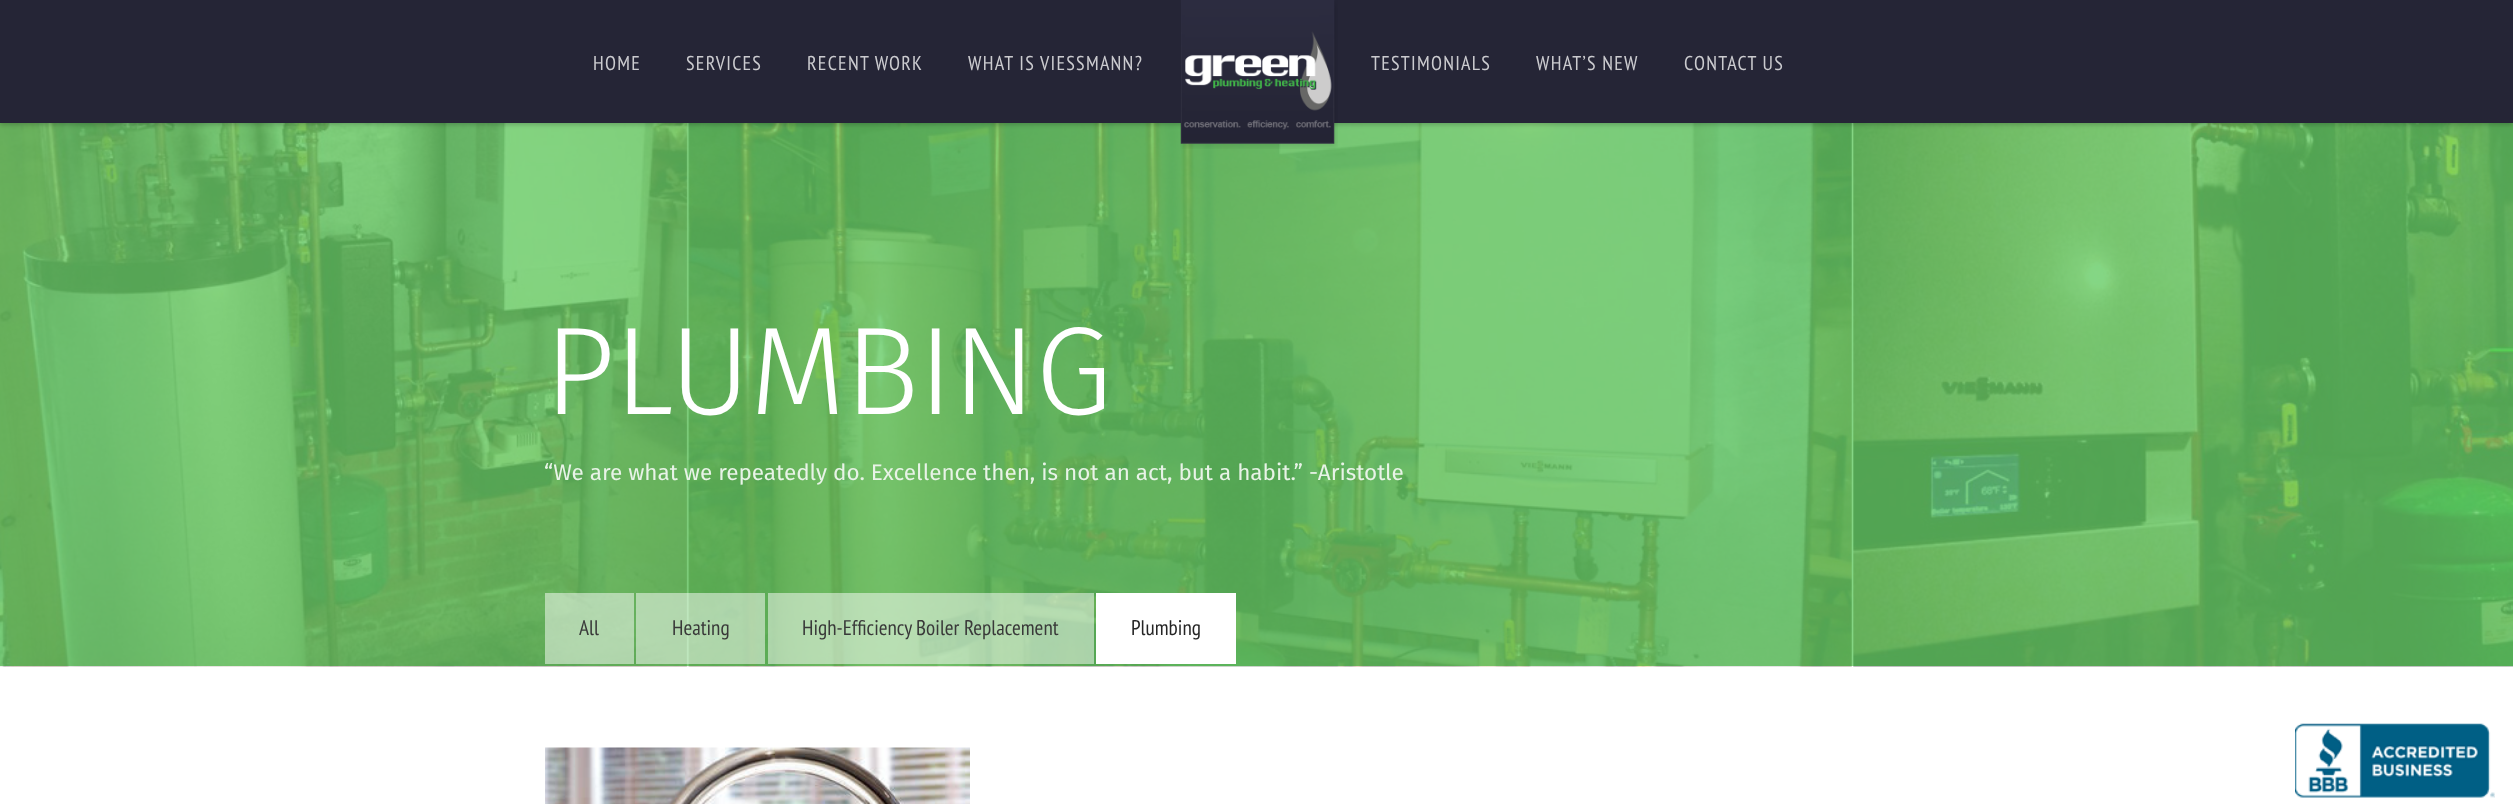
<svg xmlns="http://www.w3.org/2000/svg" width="2513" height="804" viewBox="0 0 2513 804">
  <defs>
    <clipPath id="clip1"><path d="M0 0H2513V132H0ZM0 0H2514V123H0Z" clip-rule="evenodd"/></clipPath>
  </defs>
  <rect width="100%" height="100%" fill="#fff"/>
  <path d="M0 0h2513v123H0z" fill="#252536"/>
  <image x="0" y="123" width="2513" height="544" href="img/2.png"/>
  <g clip-path="url(#clip1)">
    <path d="M0 3h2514v122H0z" fill="#00000033" filter="blur(2px)"/>
  </g>
  <image x="1180" y="0" width="158" height="149" href="img/1.png"/>
  <path d="M545 593h89v71H545z" fill="#ffffff80"/>
  <path d="M636 593h129v71H636z" fill="#ffffff80"/>
  <path d="M768 593h326v71H768z" fill="#ffffff80"/>
  <path d="M1096 593h140v71H1096z" fill="#fff"/>
  <image x="545" y="747" width="425" height="57" href="img/3.png"/>
  <image x="2295" y="723" width="200" height="75" href="img/4.png"/>
  <g font-family="PT Sans Narrow" font-size="20" letter-spacing="1.25" fill="#cbcbcf">
    <text x="593" y="70">HOME</text>
    <text x="686" y="70">SERVICES</text>
    <text x="807" y="70">RECENT WORK</text>
    <text x="968" y="70">WHAT IS VIESSMANN?</text>
    <text x="1371" y="70">TESTIMONIALS</text>
    <text x="1536" y="70">WHAT’S NEW</text>
    <text x="1684" y="70">CONTACT US</text>
  </g>
  <text x="544" y="414" font-family="Fira Sans" font-size="125" font-weight="300" letter-spacing="-1.25" fill="#fff">PLUMBING</text>
  <g font-family="Fira Sans" font-size="22.5" fill="#e8f3e7">
    <text x="544" y="480">“We are what we repeatedly do. Excellence then, is not an act, but a habit.”</text>
    <text x="1309" y="480">-Aristotle</text>
  </g>
  <g font-family="PT Sans Narrow" font-size="21.25" fill="#393939">
    <text x="579" y="635">All</text>
    <text x="672" y="635">Heating</text>
    <text x="802" y="635">High-Efficiency Boiler Replacement</text>
  </g>
  <text x="1131" y="635" font-family="PT Sans Narrow" font-size="21.25" fill="#252525">Plumbing</text>
</svg>
